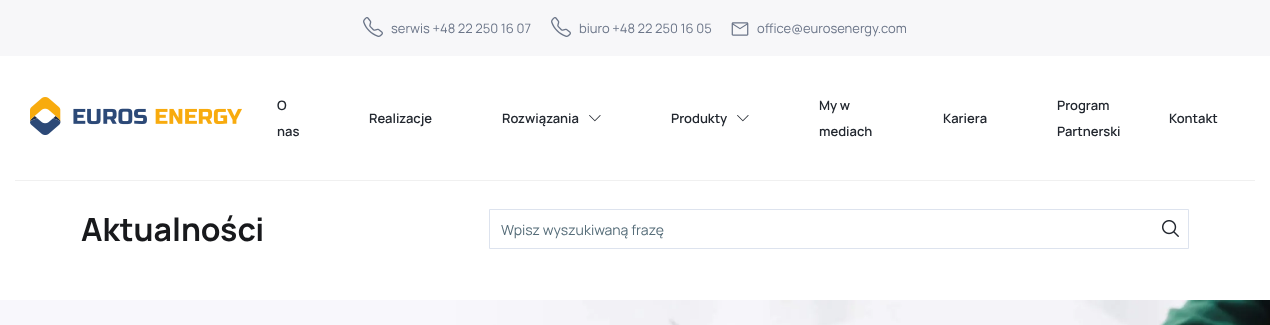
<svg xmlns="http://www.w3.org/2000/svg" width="1270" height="325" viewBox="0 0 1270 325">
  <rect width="100%" height="100%" fill="#fff"/>
  <path d="M0 0h1270v56H0z" fill="#f7f7f9"/>
  <image x="363" y="17" width="20" height="20" href="img/1.png"/>
  <image x="551" y="17" width="20" height="20" href="img/1.png"/>
  <image x="731" y="22" width="18" height="14" href="img/2.png"/>
  <path d="M15 180h1240v1H15z" fill="#f0f0f0"/>
  <image x="30" y="97" width="212" height="38" href="img/3.png"/>
  <image x="589" y="115" width="12" height="7" href="img/4.png"/>
  <image x="737" y="115" width="12" height="7" href="img/4.png"/>
  <path d="M489.5 209.5h699v39H489.5z" fill="none" stroke="#dde3ee"/>
  <image x="1162" y="220" width="17" height="17" href="img/5.png"/>
  <image x="0" y="300" width="1270" height="25" href="img/6.png"/>
  <g font-family="Manrope" font-size="13" fill="#6c7689">
    <text x="391" y="33">serwis +48 22 250 16 07</text>
    <text x="579" y="33">biuro +48 22 250 16 05</text>
    <text x="757" y="33">office@eurosenergy.com</text>
  </g>
  <g font-family="Manrope" font-size="13" font-weight="600" fill="#22272f">
    <text x="277" y="110">O</text>
    <text x="277" y="136">nas</text>
    <text x="369" y="123">Realizacje</text>
    <text x="502" y="123">Rozwiązania</text>
    <text x="671" y="123">Produkty</text>
    <text x="819" y="110">My w</text>
    <text x="819" y="136">mediach</text>
    <text x="943" y="123">Kariera</text>
    <text x="1057" y="110">Program</text>
    <text x="1057" y="136">Partnerski</text>
    <text x="1169" y="123">Kontakt</text>
  </g>
  <text x="81" y="241" font-family="Manrope" font-size="32" font-weight="bold" fill="#18191c">Aktualności</text>
  <text x="501" y="235" font-family="Manrope" font-size="14" fill="#566d79">Wpisz wyszukiwaną frazę</text>
</svg>
